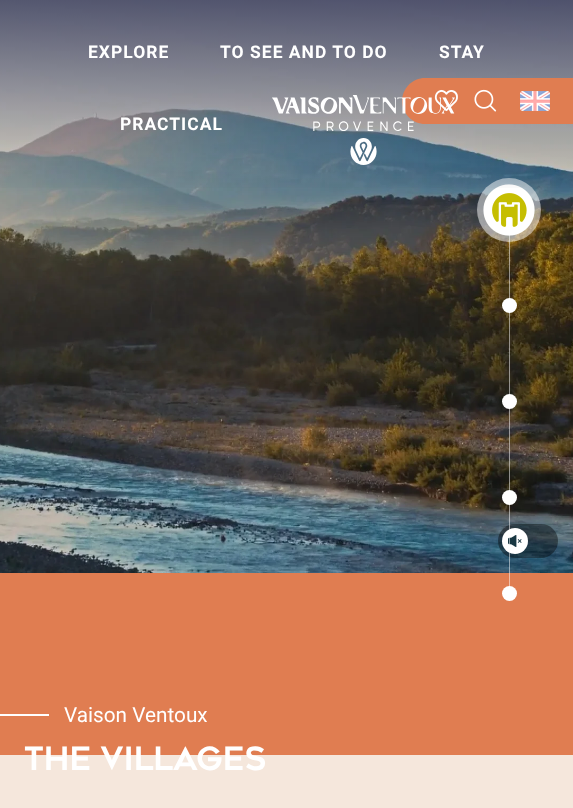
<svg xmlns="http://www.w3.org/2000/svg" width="573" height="808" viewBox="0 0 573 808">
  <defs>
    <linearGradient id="g1" gradientUnits="userSpaceOnUse" x1="287" y1="195" x2="287" y2="0"><stop offset="0" stop-color="#202347" stop-opacity="0"/><stop offset="0.43" stop-color="#202347" stop-opacity="0.27"/><stop offset="1" stop-color="#202347" stop-opacity="0.68"/></linearGradient>
  </defs>
  <rect width="100%" height="100%" fill="#f5e7dc"/>
  <image x="0" y="0" width="573" height="573" href="img/6.png"/>
  <rect x="498" y="524" width="60" height="34" rx="17" fill="#00000066"/>
  <circle cx="515" cy="541" r="13" fill="#fff"/>
  <image x="508" y="535" width="14" height="12" href="img/7.png"/>
  <path d="M0 573h573v182H0z" fill="#e07d51"/>
  <path d="M509 235h1v352H509z" fill="#ffffff80"/>
  <circle cx="509" cy="210" r="32" fill="#ffffff80"/>
  <circle cx="509" cy="210" r="25" fill="#c5be01"/>
  <image x="483" y="184" width="52" height="52" href="img/5.png"/>
  <path d="M0 0h573v188H0z" fill="url(#g1)"/>
  <path d="M425 78H573V124H425C412.5 124 402 113.5 402 101C402 88.5 412.5 78 425 78Z" fill="#e07d51"/>
  <image x="434" y="89" width="24" height="23" href="img/2.png"/>
  <image x="272" y="95" width="183" height="70" href="img/1.png"/>
  <image x="474" y="89" width="23" height="23" href="img/3.png"/>
  <image x="520" y="91" width="30" height="20" href="img/4.png"/>
  <circle cx="509.5" cy="305.5" r="7.5" fill="#fff"/>
  <circle cx="509.5" cy="401.5" r="7.5" fill="#fff"/>
  <circle cx="509.5" cy="497.5" r="7.5" fill="#fff"/>
  <circle cx="509.5" cy="593.5" r="7.5" fill="#fff"/>
  <path d="M0 714h49v2H0z" fill="#fff"/>
  <g font-family="Roboto" font-size="17.5" font-weight="bold" letter-spacing="1" fill="#fff">
    <text x="88" y="58">EXPLORE</text>
    <text x="220" y="58">TO SEE AND TO DO</text>
    <text x="439" y="58">STAY</text>
    <text x="120" y="130">PRACTICAL</text>
  </g>
  <text x="64" y="722" font-family="Roboto" font-size="20.75" fill="#fff">Vaison Ventoux</text>
  <text x="24" y="770" font-family="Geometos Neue" font-size="32" font-weight="bold" fill="#fff">THE VILLAGES</text>
</svg>
